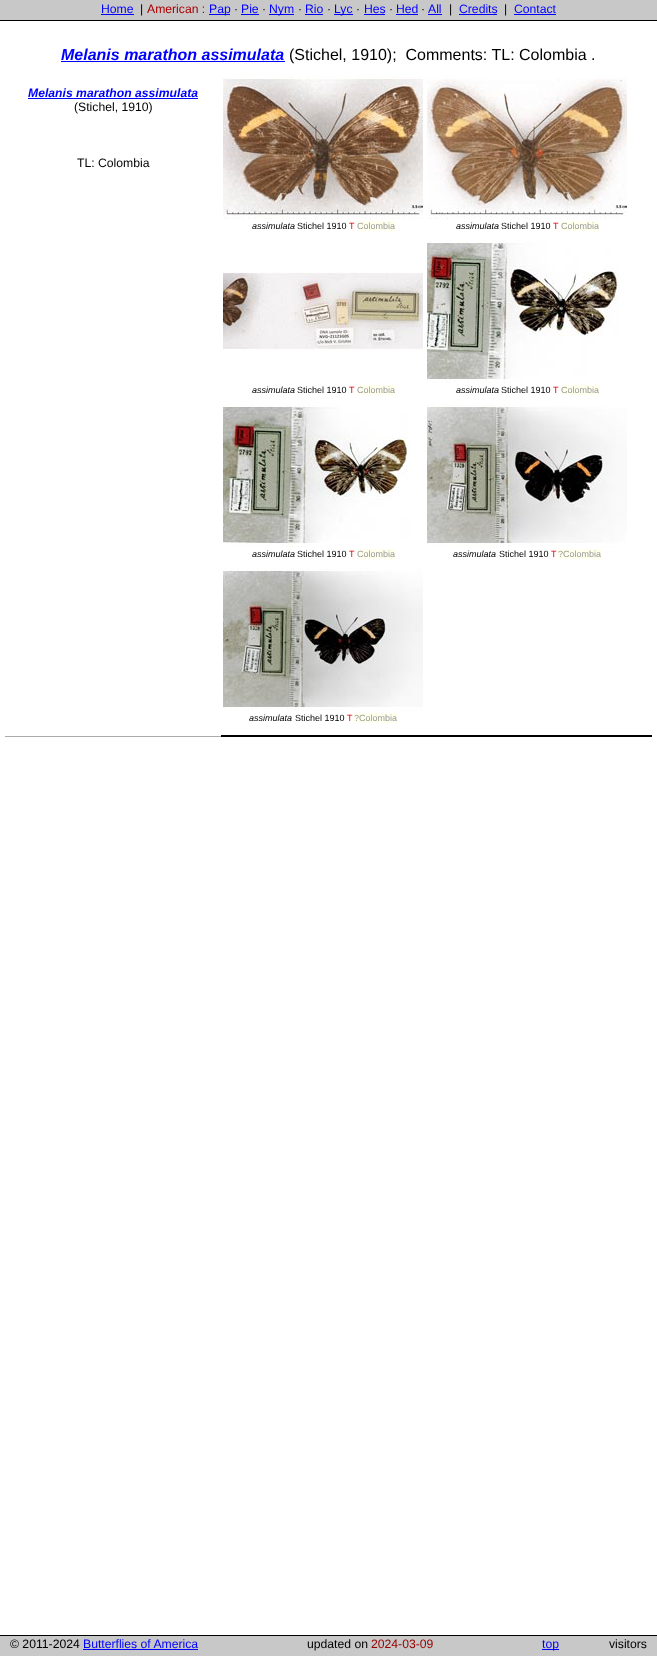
<svg xmlns="http://www.w3.org/2000/svg" width="657" height="1656" viewBox="0 0 657 1656">
  <rect width="100%" height="100%" fill="#fff"/>
  <path d="M0 0h657v20H0z" fill="#c8c8c8"/>
  <path d="M0 20h657v1H0z" fill="#000"/>
  <path d="M101 14h33v1H101z" fill="#00f"/>
  <path d="M209 14h21v1H209z" fill="#00f"/>
  <path d="M241 14h18v1H241z" fill="#00f"/>
  <path d="M269 14h25v1H269z" fill="#00f"/>
  <path d="M305 14h18v1H305z" fill="#00f"/>
  <path d="M334 14h19v1H334z" fill="#00f"/>
  <path d="M364 14h21v1H364z" fill="#00f"/>
  <path d="M396 14h22v1H396z" fill="#00f"/>
  <path d="M428 14h14v1H428z" fill="#00f"/>
  <path d="M459 14h38v1H459z" fill="#00f"/>
  <path d="M514 14h42v1H514z" fill="#00f"/>
  <path d="M61 61h224v1H61z" fill="#00f"/>
  <path d="M5 736h216v1H5z" fill="#aaa"/>
  <path d="M28 98h170v1H28z" fill="#00f"/>
  <path d="M221 735h431v2H221z" fill="#000"/>
  <image x="223" y="76" width="200" height="143" href="img/1.png"/>
  <path d="M357 221h38v10H357z" fill="#ffe"/>
  <image x="427" y="76" width="200" height="143" href="img/2.png"/>
  <path d="M561 221h38v10H561z" fill="#ffe"/>
  <image x="223" y="272" width="200" height="78" href="img/3.png"/>
  <path d="M357 385h38v10H357z" fill="#ffe"/>
  <image x="427" y="240" width="192" height="143" href="img/4.png"/>
  <path d="M561 385h38v10H561z" fill="#ffe"/>
  <image x="223" y="404" width="189" height="143" href="img/5.png"/>
  <path d="M357 549h38v10H357z" fill="#ffe"/>
  <image x="427" y="404" width="200" height="143" href="img/6.png"/>
  <path d="M558 549h43v10H558z" fill="#ffe"/>
  <image x="223" y="568" width="200" height="143" href="img/7.png"/>
  <path d="M354 713h43v10H354z" fill="#ffe"/>
  <path d="M0 1636h657v20H0z" fill="#c8c8c8"/>
  <path d="M0 1635h657v1H0z" fill="#000"/>
  <path d="M83 1649h115v1H83z" fill="#00f"/>
  <path d="M542 1649h17v1H542z" fill="#00f"/>
  <text x="101" y="13" font-family="Liberation Sans" font-size="12.2" fill="#00f">Home</text>
  <text x="140" y="13" font-family="Liberation Sans" font-size="12.2" fill="#000">|</text>
  <text x="147" y="13" font-family="Liberation Sans" font-size="12.2" fill="#a00">American :</text>
  <text x="209" y="13" font-family="Liberation Sans" font-size="12.2" fill="#00f">Pap</text>
  <text x="234" y="13" font-family="Liberation Sans" font-size="12.2" fill="#000">·</text>
  <text x="241" y="13" font-family="Liberation Sans" font-size="12.2" fill="#00f">Pie</text>
  <text x="262" y="13" font-family="Liberation Sans" font-size="12.2" fill="#000">·</text>
  <text x="269" y="13" font-family="Liberation Sans" font-size="12.2" fill="#00f">Nym</text>
  <text x="298" y="13" font-family="Liberation Sans" font-size="12.2" fill="#000">·</text>
  <text x="305" y="13" font-family="Liberation Sans" font-size="12.2" fill="#00f">Rio</text>
  <text x="327" y="13" font-family="Liberation Sans" font-size="12.2" fill="#000">·</text>
  <text x="334" y="13" font-family="Liberation Sans" font-size="12.2" fill="#00f">Lyc</text>
  <text x="356" y="13" font-family="Liberation Sans" font-size="12.2" fill="#000">·</text>
  <text x="364" y="13" font-family="Liberation Sans" font-size="12.2" fill="#00f">Hes</text>
  <text x="389" y="13" font-family="Liberation Sans" font-size="12.2" fill="#000">·</text>
  <text x="396" y="13" font-family="Liberation Sans" font-size="12.2" fill="#00f">Hed</text>
  <text x="421" y="13" font-family="Liberation Sans" font-size="12.2" fill="#000">·</text>
  <text x="428" y="13" font-family="Liberation Sans" font-size="12.2" fill="#00f">All</text>
  <text x="449" y="13" font-family="Liberation Sans" font-size="12.2" fill="#000">|</text>
  <text x="459" y="13" font-family="Liberation Sans" font-size="12.2" fill="#00f">Credits</text>
  <text x="504" y="13" font-family="Liberation Sans" font-size="12.2" fill="#000">|</text>
  <text x="514" y="13" font-family="Liberation Sans" font-size="12.2" fill="#00f">Contact</text>
  <text x="61" y="60" font-family="Liberation Sans" font-size="16" font-weight="bold" font-style="italic" fill="#00f">Melanis marathon assimulata</text>
  <text x="289" y="60" font-family="Liberation Sans" font-size="16" fill="#000" xml:space="preserve">(Stichel, 1910);  Comments: TL: Colombia .</text>
  <text x="28" y="97" font-family="Liberation Sans" font-size="12.2" font-weight="bold" font-style="italic" fill="#00f">Melanis marathon assimulata</text>
  <g font-family="Liberation Sans" font-size="12.2" fill="#000">
    <text x="74" y="111">(Stichel, 1910)</text>
    <text x="77" y="167">TL: Colombia</text>
  </g>
  <text x="252" y="229" font-family="Liberation Sans" font-size="9" font-style="italic" fill="#000">assimulata</text>
  <text x="297" y="229" font-family="Liberation Sans" font-size="9" fill="#000">Stichel 1910</text>
  <text x="349" y="229" font-family="Liberation Sans" font-size="9" fill="#d00">T</text>
  <text x="357" y="229" font-family="Liberation Sans" font-size="9" fill="#999">Colombia</text>
  <text x="456" y="229" font-family="Liberation Sans" font-size="9" font-style="italic" fill="#000">assimulata</text>
  <text x="501" y="229" font-family="Liberation Sans" font-size="9" fill="#000">Stichel 1910</text>
  <text x="553" y="229" font-family="Liberation Sans" font-size="9" fill="#d00">T</text>
  <text x="561" y="229" font-family="Liberation Sans" font-size="9" fill="#999">Colombia</text>
  <text x="252" y="393" font-family="Liberation Sans" font-size="9" font-style="italic" fill="#000">assimulata</text>
  <text x="297" y="393" font-family="Liberation Sans" font-size="9" fill="#000">Stichel 1910</text>
  <text x="349" y="393" font-family="Liberation Sans" font-size="9" fill="#d00">T</text>
  <text x="357" y="393" font-family="Liberation Sans" font-size="9" fill="#999">Colombia</text>
  <text x="456" y="393" font-family="Liberation Sans" font-size="9" font-style="italic" fill="#000">assimulata</text>
  <text x="501" y="393" font-family="Liberation Sans" font-size="9" fill="#000">Stichel 1910</text>
  <text x="553" y="393" font-family="Liberation Sans" font-size="9" fill="#d00">T</text>
  <text x="561" y="393" font-family="Liberation Sans" font-size="9" fill="#999">Colombia</text>
  <text x="252" y="557" font-family="Liberation Sans" font-size="9" font-style="italic" fill="#000">assimulata</text>
  <text x="297" y="557" font-family="Liberation Sans" font-size="9" fill="#000">Stichel 1910</text>
  <text x="349" y="557" font-family="Liberation Sans" font-size="9" fill="#d00">T</text>
  <text x="357" y="557" font-family="Liberation Sans" font-size="9" fill="#999">Colombia</text>
  <text x="453" y="557" font-family="Liberation Sans" font-size="9" font-style="italic" fill="#000">assimulata</text>
  <text x="499" y="557" font-family="Liberation Sans" font-size="9" fill="#000">Stichel 1910</text>
  <text x="551" y="557" font-family="Liberation Sans" font-size="9" fill="#d00">T</text>
  <text x="558" y="557" font-family="Liberation Sans" font-size="9" fill="#999">?Colombia</text>
  <text x="249" y="721" font-family="Liberation Sans" font-size="9" font-style="italic" fill="#000">assimulata</text>
  <text x="295" y="721" font-family="Liberation Sans" font-size="9" fill="#000">Stichel 1910</text>
  <text x="347" y="721" font-family="Liberation Sans" font-size="9" fill="#d00">T</text>
  <text x="354" y="721" font-family="Liberation Sans" font-size="9" fill="#999">?Colombia</text>
  <text x="10" y="1648" font-family="Liberation Sans" font-size="12.2" fill="#000">© 2011-2024</text>
  <text x="83" y="1648" font-family="Liberation Sans" font-size="12.2" fill="#00f">Butterflies of America</text>
  <text x="307" y="1648" font-family="Liberation Sans" font-size="12.2" fill="#000">updated on</text>
  <text x="371" y="1648" font-family="Liberation Sans" font-size="12.2" fill="#960000">2024-03-09</text>
  <text x="542" y="1648" font-family="Liberation Sans" font-size="12.2" fill="#00f">top</text>
  <text x="609" y="1648" font-family="Liberation Sans" font-size="12.2" fill="#000">visitors</text>
</svg>
